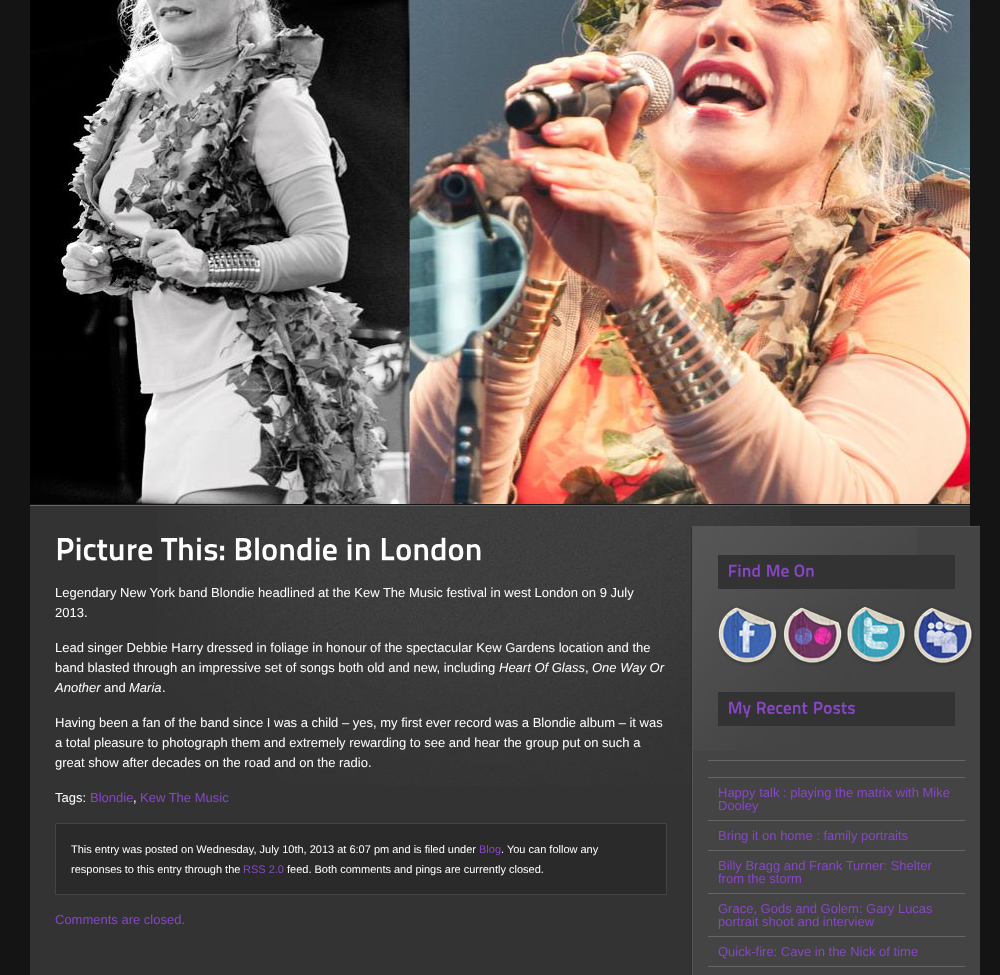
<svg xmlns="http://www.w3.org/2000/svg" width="1000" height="975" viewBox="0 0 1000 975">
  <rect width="100%" height="100%" fill="#141414"/>
  <image x="30" y="0" width="940" height="504" href="img/1.png"/>
  <path d="M30 506h940v469H30z" fill="#333"/>
  <image x="157" y="506" width="633" height="280" href="img/2.png"/>
  <path d="M30 505h940v1H30z" fill="#666"/>
  <image x="57" y="537" width="96" height="24" href="img/3.png"/>
  <image x="161" y="537" width="64" height="24" href="img/4.png"/>
  <image x="235" y="537" width="102" height="24" href="img/5.png"/>
  <image x="347" y="537" width="23" height="24" href="img/6.png"/>
  <image x="381" y="537" width="100" height="24" href="img/7.png"/>
  <path d="M55.5 823.5h611v71H55.5z" fill="#2a2a2a" stroke="#444"/>
  <path d="M691 527h288v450H691z" fill="#2d2d2d" filter="blur(0.5px)"/>
  <path d="M693 527h287v448H693z" fill="#444"/>
  <image x="693" y="527" width="224" height="224" href="img/8.png"/>
  <path d="M692 526h288v1H692z" fill="#555"/>
  <path d="M692 526h1v449H692z" fill="#555"/>
  <path d="M718 555h237v34H718z" fill="#333"/>
  <image x="729" y="564" width="31" height="13" href="img/9.png"/>
  <image x="767" y="564" width="22" height="13" href="img/10.png"/>
  <image x="794" y="564" width="20" height="13" href="img/11.png"/>
  <image x="718" y="606" width="256" height="60" href="img/12.png"/>
  <path d="M718 692h237v34H718z" fill="#333"/>
  <image x="729" y="701" width="22" height="17" href="img/13.png"/>
  <image x="757" y="701" width="51" height="13" href="img/14.png"/>
  <image x="814" y="701" width="41" height="13" href="img/15.png"/>
  <path d="M708 760h257v1H708z" fill="#666"/>
  <path d="M708 777h257v1H708z" fill="#666"/>
  <path d="M708 820h257v1H708z" fill="#666"/>
  <path d="M708 850h257v1H708z" fill="#666"/>
  <path d="M708 893h257v1H708z" fill="#666"/>
  <path d="M708 936h257v1H708z" fill="#666"/>
  <path d="M708 966h257v1H708z" fill="#666"/>
  <g font-family="Liberation Sans" font-size="13" fill="#fff">
    <text x="55" y="597">Legendary New York band Blondie headlined at the Kew The Music festival in west London on 9 July</text>
    <text x="55" y="617">2013.</text>
    <text x="55" y="652">Lead singer Debbie Harry dressed in foliage in honour of the spectacular Kew Gardens location and the</text>
    <text x="55" y="672">band blasted through an impressive set of songs both old and new, including</text>
  </g>
  <text x="499" y="672" font-family="Liberation Sans" font-size="13" font-style="italic" fill="#fff">Heart Of Glass</text>
  <text x="585" y="672" font-family="Liberation Sans" font-size="13" fill="#fff">,</text>
  <g font-family="Liberation Sans" font-size="13" font-style="italic" fill="#fff">
    <text x="592" y="672">One Way Or</text>
    <text x="55" y="692">Another</text>
  </g>
  <text x="104" y="692" font-family="Liberation Sans" font-size="13" fill="#fff">and</text>
  <text x="129" y="692" font-family="Liberation Sans" font-size="13" font-style="italic" fill="#fff">Maria</text>
  <g font-family="Liberation Sans" font-size="13" fill="#fff">
    <text x="162" y="692">.</text>
    <text x="55" y="727">Having been a fan of the band since I was a child – yes, my first ever record was a Blondie album – it was</text>
    <text x="55" y="747">a total pleasure to photograph them and extremely rewarding to see and hear the group put on such a</text>
    <text x="55" y="767">great show after decades on the road and on the radio.</text>
    <text x="55" y="802">Tags:</text>
  </g>
  <text x="90" y="802" font-family="Liberation Sans" font-size="13" fill="#8747c4">Blondie</text>
  <text x="133" y="802" font-family="Liberation Sans" font-size="13" fill="#fff">,</text>
  <text x="140" y="802" font-family="Liberation Sans" font-size="13" fill="#8747c4">Kew The Music</text>
  <text x="71" y="853" font-family="Liberation Sans" font-size="11" fill="#fff">This entry was posted on Wednesday, July 10th, 2013 at 6:07 pm and is filed under</text>
  <text x="479" y="853" font-family="Liberation Sans" font-size="11" fill="#8747c4">Blog</text>
  <g font-family="Liberation Sans" font-size="11" fill="#fff">
    <text x="501" y="853">. You can follow any</text>
    <text x="71" y="873">responses to this entry through the</text>
  </g>
  <text x="243" y="873" font-family="Liberation Sans" font-size="11" fill="#8747c4">RSS 2.0</text>
  <text x="287" y="873" font-family="Liberation Sans" font-size="11" fill="#fff">feed. Both comments and pings are currently closed.</text>
  <g font-family="Liberation Sans" font-size="13" fill="#8747c4">
    <text x="55" y="924">Comments are closed.</text>
    <text x="718" y="797">Happy talk : playing the matrix with Mike</text>
    <text x="718" y="810">Dooley</text>
    <text x="718" y="840">Bring it on home : family portraits</text>
    <text x="718" y="870">Billy Bragg and Frank Turner: Shelter</text>
    <text x="718" y="883">from the storm</text>
    <text x="718" y="913">Grace, Gods and Golem: Gary Lucas</text>
    <text x="718" y="926">portrait shoot and interview</text>
    <text x="718" y="956">Quick-fire: Cave in the Nick of time</text>
  </g>
</svg>
